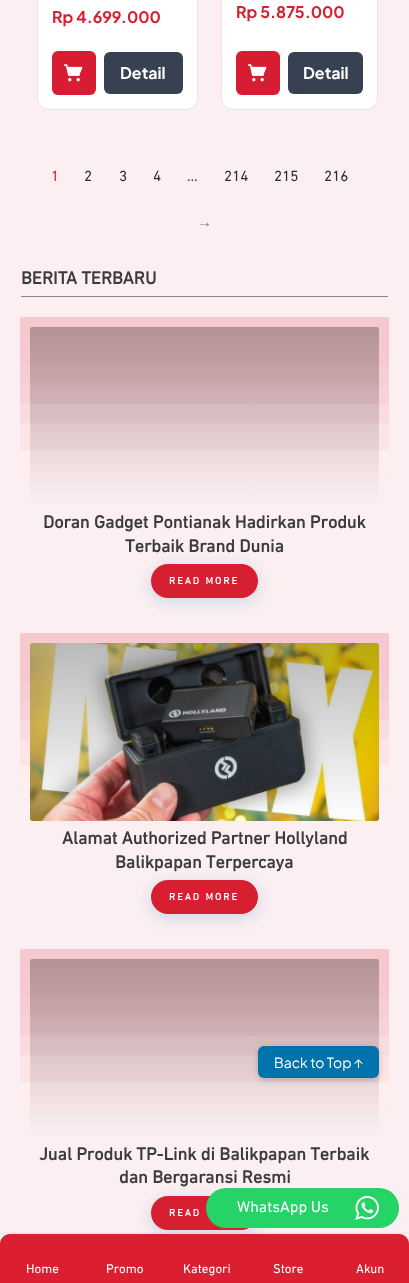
<svg xmlns="http://www.w3.org/2000/svg" width="409" height="1283" viewBox="0 0 409 1283">
  <defs>
    <linearGradient id="g1" gradientUnits="userSpaceOnUse" x1="205" y1="327" x2="205" y2="505"><stop offset="0" stop-color="#000" stop-opacity="0.27"/><stop offset="1" stop-color="#000" stop-opacity="0"/></linearGradient>
    <linearGradient id="g2" gradientUnits="userSpaceOnUse" x1="205" y1="959" x2="205" y2="1137"><stop offset="0" stop-color="#000" stop-opacity="0.27"/><stop offset="1" stop-color="#000" stop-opacity="0"/></linearGradient>
    <clipPath id="clip1"><path d="M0 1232h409v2H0z"/></clipPath>
  </defs>
  <rect width="100%" height="100%" fill="#fbeff1"/>
  <rect x="37.5" y="-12.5" width="160" height="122" rx="11.5" fill="#fff" stroke="#e5e5e5"/>
  <rect x="52" y="51" width="44" height="44" rx="6" fill="#d61d31"/>
  <image x="64" y="64" width="19" height="18" href="img/1.png"/>
  <rect x="104" y="52" width="79" height="42" rx="6" fill="#374151"/>
  <rect x="221.5" y="-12.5" width="156" height="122" rx="11.5" fill="#fff" stroke="#e5e5e5"/>
  <rect x="236" y="51" width="44" height="44" rx="6" fill="#d61d31"/>
  <image x="248" y="64" width="19" height="18" href="img/1.png"/>
  <rect x="288" y="52" width="75" height="42" rx="6" fill="#374151"/>
  <path d="M21 296h367v1H21z" fill="#878787"/>
  <rect x="20" y="317" width="369" height="159" rx="2" fill="#f5c9ce"/>
  <path d="M20 450H389V474C389 475 388 476 387 476H22C21 476 20 475 20 474Z" fill="#fee"/>
  <path d="M20 423h369v27H20z" fill="#fde5e6"/>
  <path d="M20 404h369v19H20z" fill="#fadcde"/>
  <path d="M20 385h369v19H20z" fill="#f8d2d6"/>
  <path d="M20 366h369v19H20z" fill="#f6cdd1"/>
  <rect x="30" y="327" width="349" height="178" rx="2" fill="url(#g1)"/>
  <rect x="151" y="568" width="107" height="34" rx="17" fill="#1372d333" filter="blur(8px)"/>
  <rect x="151" y="564" width="107" height="34" rx="17" fill="#d61f31"/>
  <rect x="20" y="633" width="369" height="159" rx="2" fill="#f5c9ce"/>
  <path d="M20 766H389V790C389 791 388 792 387 792H22C21 792 20 791 20 790Z" fill="#fee"/>
  <path d="M20 739h369v27H20z" fill="#fde5e6"/>
  <path d="M20 720h369v19H20z" fill="#fadcde"/>
  <path d="M20 701h369v19H20z" fill="#f8d2d6"/>
  <path d="M20 682h369v19H20z" fill="#f6cdd1"/>
  <image x="30" y="643" width="349" height="178" href="img/2.png"/>
  <rect x="151" y="884" width="107" height="34" rx="17" fill="#1372d333" filter="blur(8px)"/>
  <rect x="151" y="880" width="107" height="34" rx="17" fill="#d61f31"/>
  <rect x="20" y="949" width="369" height="159" rx="2" fill="#f5c9ce"/>
  <path d="M20 1082H389V1106C389 1107 388 1108 387 1108H22C21 1108 20 1107 20 1106Z" fill="#fee"/>
  <path d="M20 1055h369v27H20z" fill="#fde5e6"/>
  <path d="M20 1036h369v19H20z" fill="#fadcde"/>
  <path d="M20 1017h369v19H20z" fill="#f8d2d6"/>
  <path d="M20 998h369v19H20z" fill="#f6cdd1"/>
  <rect x="30" y="959" width="349" height="178" rx="2" fill="url(#g2)"/>
  <rect x="151" y="1200" width="107" height="34" rx="17" fill="#1372d333" filter="blur(8px)"/>
  <rect x="151" y="1196" width="107" height="34" rx="17" fill="#d61f31"/>
  <rect x="258" y="1048" width="121" height="32" rx="6" fill="#00000033" filter="blur(3px)"/>
  <rect x="258" y="1046" width="121" height="32" rx="6" fill="#0073aa"/>
  <g clip-path="url(#clip1)">
    <path d="M0 1234h409v49H0z" fill="#0000001a" filter="blur(2.5px)"/>
  </g>
  <rect x="206" y="1188" width="193" height="40" rx="20" fill="#25d366"/>
  <image x="355" y="1196" width="24" height="24" href="img/3.png"/>
  <path d="M10 1234H399C404.5 1234 409 1238.5 409 1244V1283H0V1244C0 1238.5 4.5 1234 10 1234Z" fill="#db1f31"/>
  <text x="52" y="23" font-family="Plus Jakarta Sans" font-size="16" font-weight="bold" fill="#d61f31">Rp 4.699.000</text>
  <text x="120" y="79" font-family="Plus Jakarta Sans" font-size="16" font-weight="bold" fill="#fff">Detail</text>
  <text x="236" y="18" font-family="Plus Jakarta Sans" font-size="16" font-weight="bold" fill="#d61f31">Rp 5.875.000</text>
  <text x="303" y="79" font-family="Plus Jakarta Sans" font-size="16" font-weight="bold" fill="#fff">Detail</text>
  <text x="51" y="181" font-family="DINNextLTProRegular" font-size="15" fill="#d61f31">1</text>
  <g font-family="DINNextLTProRegular" font-size="15" fill="#2e2c2d">
    <text x="84" y="181">2</text>
    <text x="119" y="181">3</text>
    <text x="153" y="181">4</text>
    <text x="187" y="181">…</text>
    <text x="224" y="181">214</text>
    <text x="274" y="181">215</text>
    <text x="324" y="181">216</text>
  </g>
  <text x="197" y="227" font-family="Liberation Serif" font-size="15" fill="#7d7d7d">→</text>
  <g font-family="DINNextLTProRegular" font-size="18" font-weight="bold" fill="#3b3b3b">
    <text x="21" y="284">BERITA TERBARU</text>
    <text x="43" y="528">Doran Gadget Pontianak Hadirkan Produk</text>
    <text x="125" y="552">Terbaik Brand Dunia</text>
  </g>
  <text x="169" y="584" font-family="DINNextLTProRegular" font-size="10" font-weight="bold" letter-spacing="2" fill="#fff">READ MORE</text>
  <g font-family="DINNextLTProRegular" font-size="18" font-weight="bold" fill="#3b3b3b">
    <text x="62" y="844">Alamat Authorized Partner Hollyland</text>
    <text x="115" y="868">Balikpapan Terpercaya</text>
  </g>
  <text x="169" y="900" font-family="DINNextLTProRegular" font-size="10" font-weight="bold" letter-spacing="2" fill="#fff">READ MORE</text>
  <g font-family="DINNextLTProRegular" font-size="18" font-weight="bold" fill="#3b3b3b">
    <text x="39" y="1160">Jual Produk TP-Link di Balikpapan Terbaik</text>
    <text x="119" y="1183">dan Bergaransi Resmi</text>
  </g>
  <text x="169" y="1216" font-family="DINNextLTProRegular" font-size="10" font-weight="bold" letter-spacing="2" fill="#fff">READ</text>
  <text x="274" y="1068" font-family="Plus Jakarta Sans" font-size="14" fill="#fff">Back to Top ↑</text>
  <text x="237" y="1212" font-family="DINNextLTProRegular" font-size="16" fill="#fff">WhatsApp Us</text>
  <g font-family="DINNextLTProRegular" font-size="13" fill="#fff">
    <text x="26" y="1273">Home</text>
    <text x="106" y="1273">Promo</text>
    <text x="183" y="1273">Kategori</text>
    <text x="273" y="1273">Store</text>
    <text x="356" y="1273">Akun</text>
  </g>
</svg>
